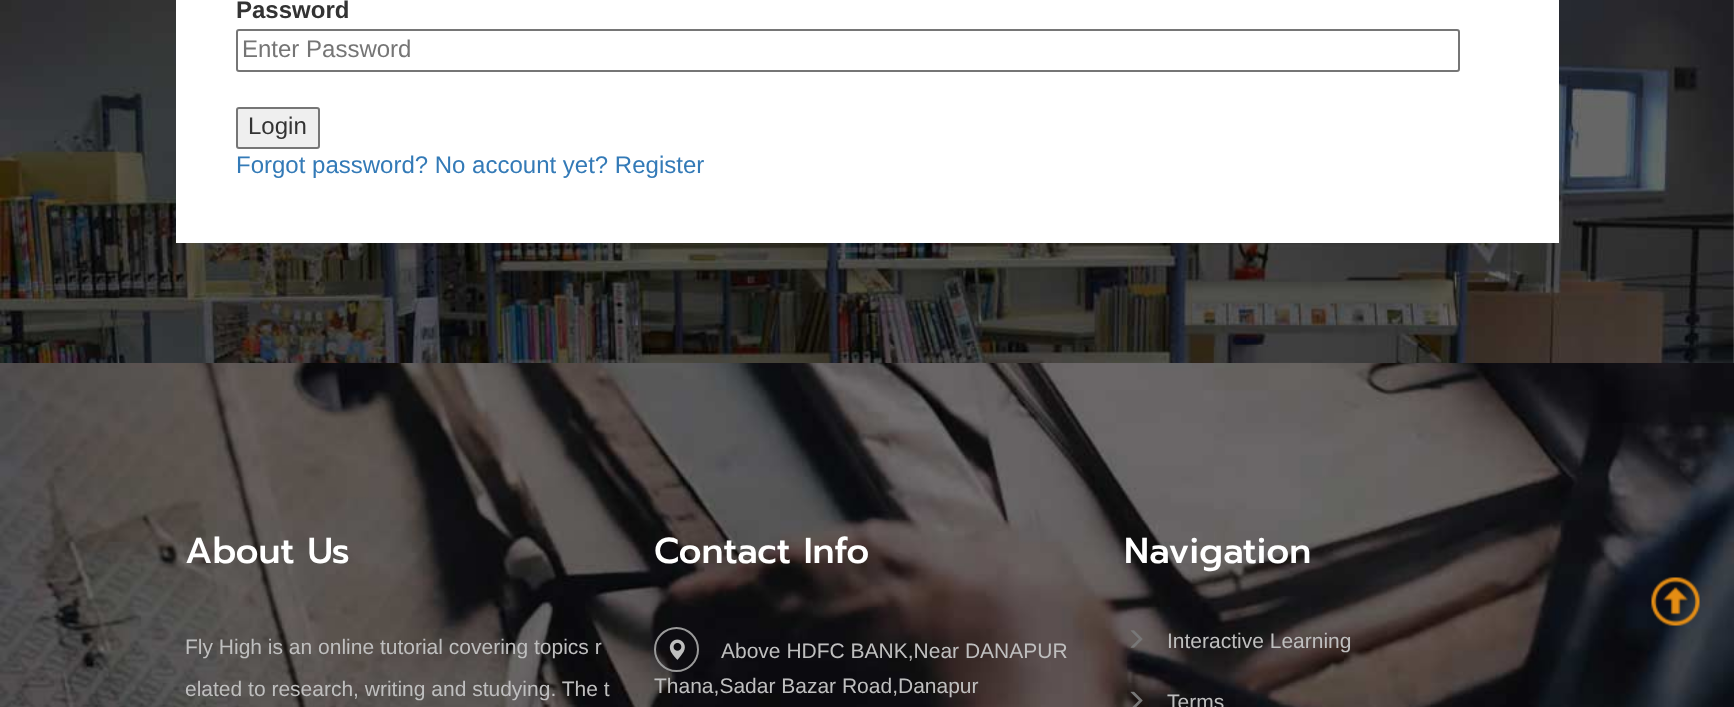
<svg xmlns="http://www.w3.org/2000/svg" width="1734" height="707" viewBox="0 0 1734 707">
  <rect width="100%" height="100%" fill="#fff"/>
  <image x="0" y="0" width="1734" height="363" href="img/1.png"/>
  <path d="M176 0h1383v243H176z" fill="#fff"/>
  <rect x="237" y="30" width="1222" height="41" rx="2" fill="none" stroke="#767676" stroke-width="2"/>
  <rect x="237" y="108" width="82" height="40" rx="2" fill="#efefef" stroke="#767676" stroke-width="2"/>
  <image x="0" y="363" width="1734" height="344" href="img/2.png"/>
  <circle cx="676.5" cy="649.5" r="21.5" fill="none" stroke="#999" stroke-width="2"/>
  <image x="669" y="639" width="16" height="21" href="img/3.png"/>
  <image x="1130" y="630" width="13" height="18" href="img/4.png"/>
  <image x="1130" y="691" width="13" height="16" href="img/5.png"/>
  <image x="1651" y="577" width="49" height="49" href="img/6.png"/>
  <text x="236" y="18" font-family="Liberation Sans" font-size="24" font-weight="bold" fill="#333">Password</text>
  <text x="242" y="57" font-family="Liberation Sans" font-size="24" fill="#757575">Enter Password</text>
  <text x="248" y="134" font-family="Liberation Sans" font-size="24" fill="#333">Login</text>
  <text x="236" y="173" font-family="Liberation Sans" font-size="24" fill="#337ab7">Forgot password? No account yet? Register</text>
  <text x="185" y="563" font-family="Prompt" font-size="36" font-weight="500" fill="#fff">About Us</text>
  <g font-family="Liberation Sans" font-size="21" fill="#bfbfbf">
    <text x="185" y="654">Fly High is an online tutorial covering topics r</text>
    <text x="185" y="696">elated to research, writing and studying. The t</text>
  </g>
  <text x="654" y="563" font-family="Prompt" font-size="36" font-weight="500" fill="#fff">Contact Info</text>
  <g font-family="Liberation Sans" font-size="21" fill="#bfbfbf">
    <text x="721" y="658">Above HDFC BANK,Near DANAPUR</text>
    <text x="654" y="693">Thana,Sadar Bazar Road,Danapur</text>
  </g>
  <text x="1124" y="563" font-family="Prompt" font-size="36" font-weight="500" fill="#fff">Navigation</text>
  <g font-family="Liberation Sans" font-size="21" fill="#bfbfbf">
    <text x="1167" y="648">Interactive Learning</text>
    <text x="1167" y="709">Terms</text>
  </g>
</svg>
